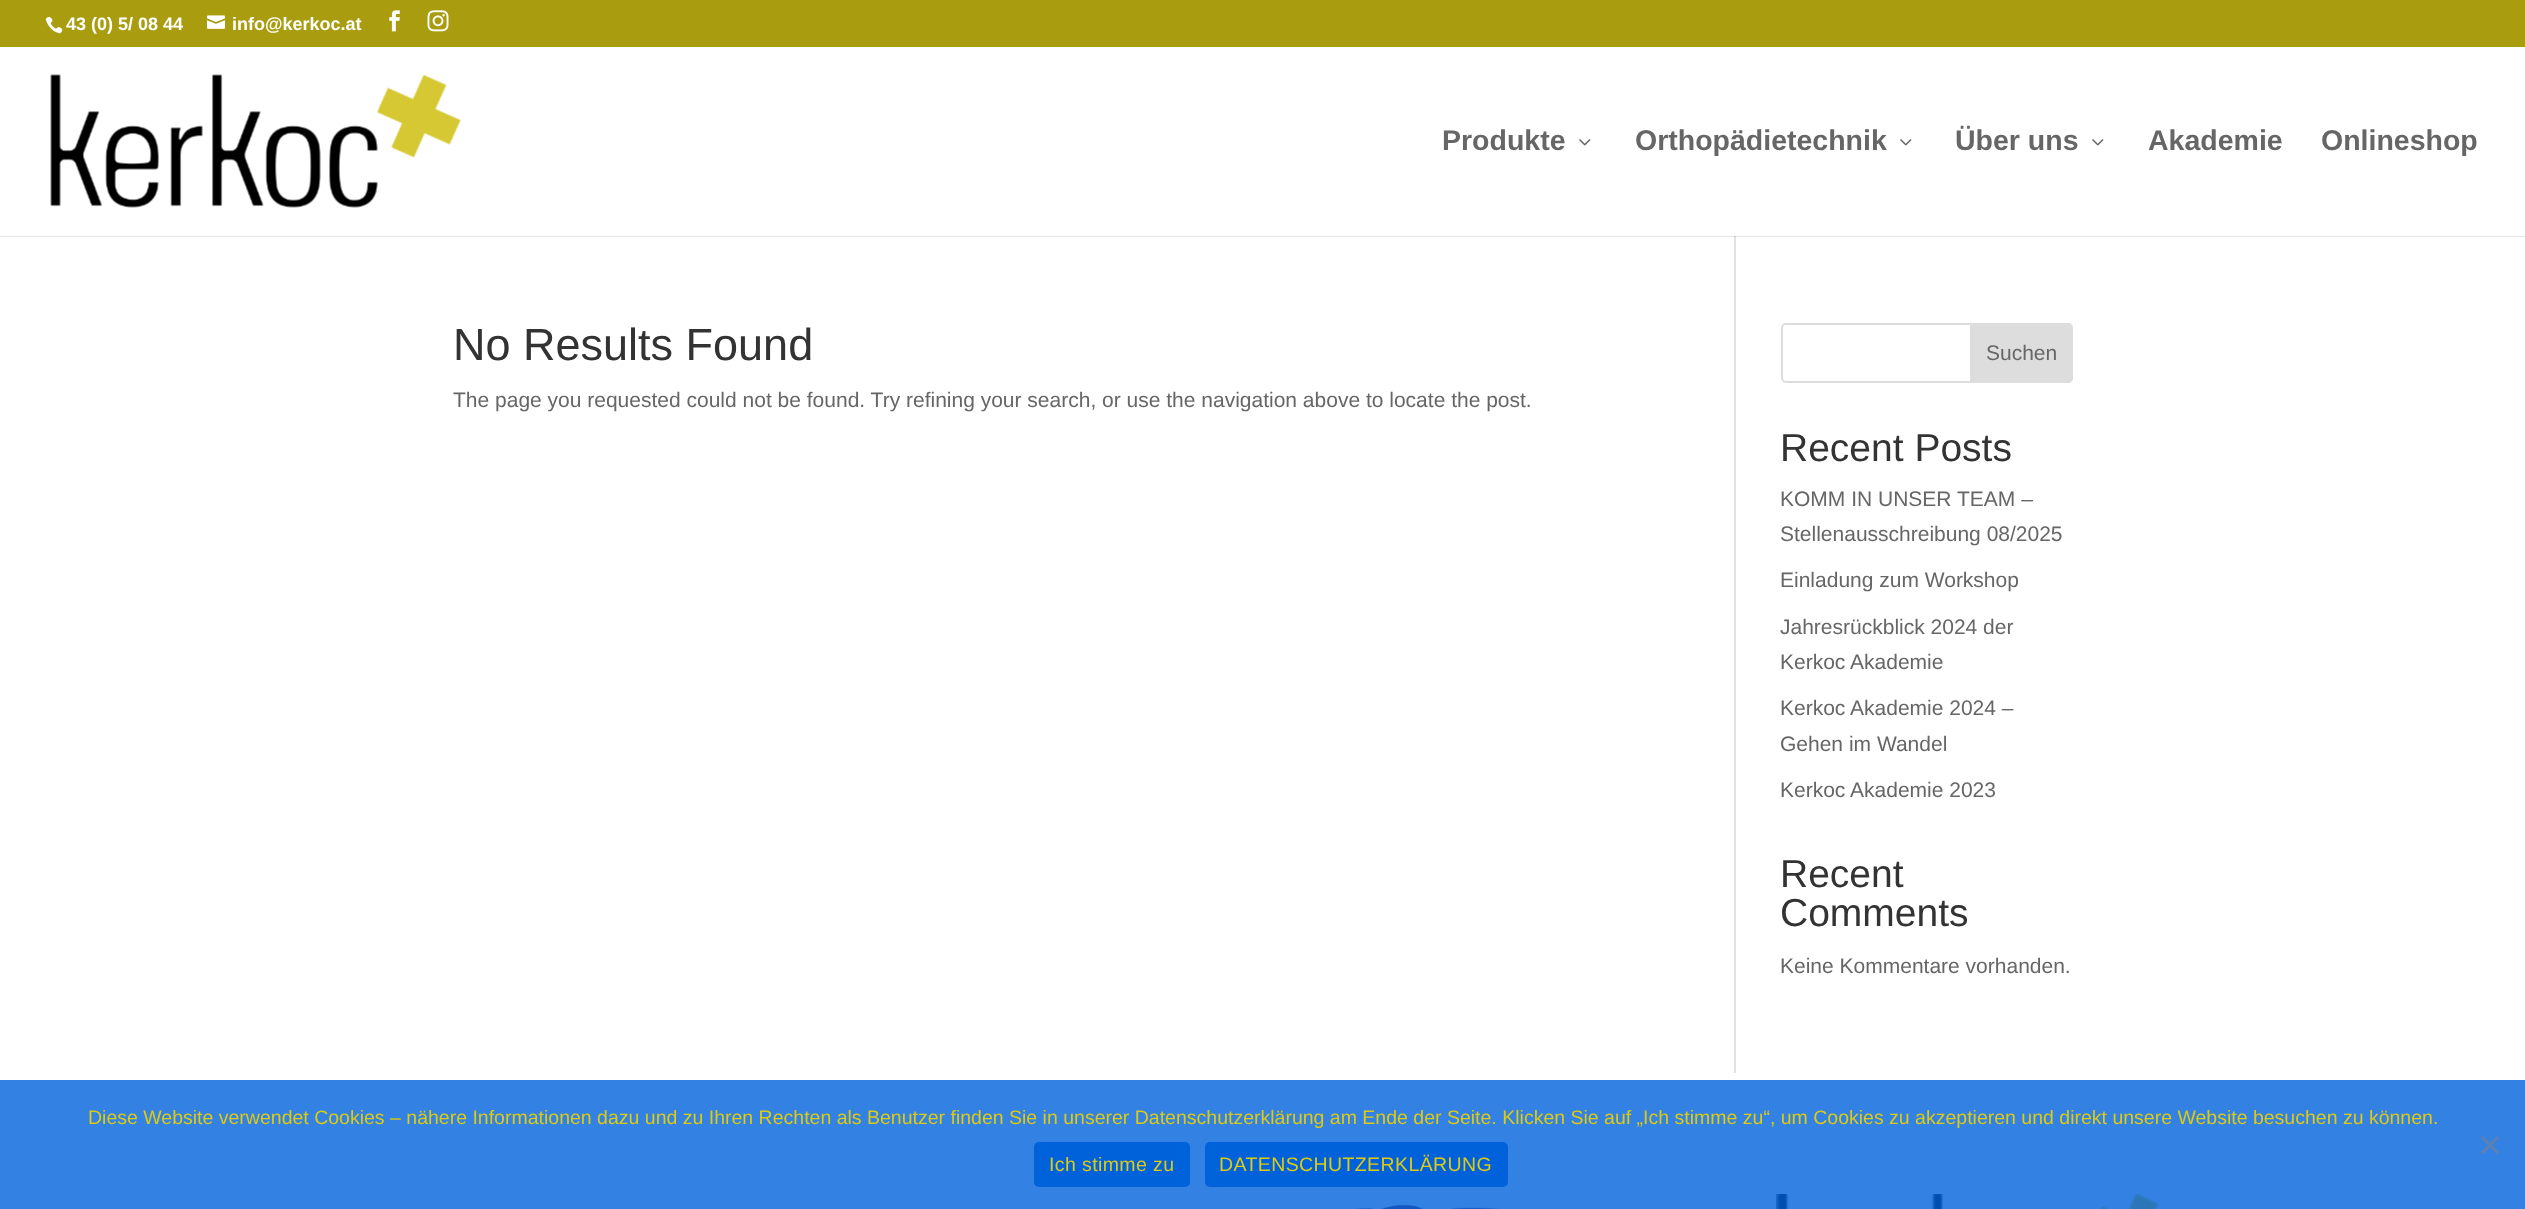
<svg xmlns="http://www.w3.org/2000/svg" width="2525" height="1209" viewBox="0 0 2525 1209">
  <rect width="100%" height="100%" fill="#fff"/>
  <path d="M0 0h2525v47H0z" fill="#aa9c0f"/>
  <image x="45" y="16" width="18" height="18" href="img/1.png"/>
  <image x="207" y="15" width="18" height="14" href="img/2.png"/>
  <image x="389" y="10" width="11" height="22" href="img/3.png"/>
  <image x="427" y="10" width="22" height="22" href="img/4.png"/>
  <path d="M1734 236h2v837H1734z" fill="#e2e2e2"/>
  <path d="M0 236h2525v1H0z" fill="#0000001a"/>
  <image x="50" y="74" width="411" height="134" href="img/5.png"/>
  <image x="1579" y="139" width="12" height="7" href="img/6.png"/>
  <image x="1900" y="139" width="12" height="7" href="img/6.png"/>
  <image x="2092" y="139" width="12" height="7" href="img/6.png"/>
  <rect x="1782" y="324" width="290" height="58" rx="4" fill="none" stroke="#ddd" stroke-width="2"/>
  <path d="M1971 324H2068C2070 324 2072 326 2072 328V378C2072 380 2070 382 2068 382H1971Z" fill="#ddd" stroke="#ddd" stroke-width="2"/>
  <image x="1353" y="1204" width="149" height="5" href="img/7.png"/>
  <image x="1776" y="1194" width="383" height="15" href="img/8.png"/>
  <path d="M0 1080h2525v129H0z" fill="#0062dbcc"/>
  <path d="M2497 1136L2499 1138.5L2483 1154.5L2481 1152Z" fill="#5a81b1"/>
  <path d="M2481 1138.5L2483 1136L2499 1152L2497 1154.5Z" fill="#5a81b1"/>
  <rect x="1034" y="1142" width="156" height="45" rx="5" fill="#0062db"/>
  <rect x="1205" y="1142" width="303" height="45" rx="5" fill="#0062db"/>
  <g font-family="Liberation Sans" font-size="18" font-weight="bold" fill="#fff">
    <text x="66" y="30">43 (0) 5/ 08 44</text>
    <text x="232" y="30">info@kerkoc.at</text>
  </g>
  <g font-family="Liberation Sans" font-size="28.5" font-weight="bold" fill="#666">
    <text x="1442" y="150">Produkte</text>
    <text x="1635" y="150">Orthopädietechnik</text>
    <text x="1955" y="150">Über uns</text>
    <text x="2148" y="150">Akademie</text>
    <text x="2321" y="150">Onlineshop</text>
  </g>
  <text x="453" y="360" font-family="Liberation Sans" font-size="45" fill="#333">No Results Found</text>
  <g font-family="Liberation Sans" font-size="21" fill="#666">
    <text x="453" y="407">The page you requested could not be found. Try refining your search, or use the navigation above to locate the post.</text>
    <text x="1986" y="360">Suchen</text>
  </g>
  <text x="1780" y="461" font-family="Liberation Sans" font-size="39" fill="#333">Recent Posts</text>
  <g font-family="Liberation Sans" font-size="21" fill="#666">
    <text x="1780" y="506">KOMM IN UNSER TEAM –</text>
    <text x="1780" y="541">Stellenausschreibung 08/2025</text>
    <text x="1780" y="587">Einladung zum Workshop</text>
    <text x="1780" y="634">Jahresrückblick 2024 der</text>
    <text x="1780" y="669">Kerkoc Akademie</text>
    <text x="1780" y="715">Kerkoc Akademie 2024 –</text>
    <text x="1780" y="751">Gehen im Wandel</text>
    <text x="1780" y="797">Kerkoc Akademie 2023</text>
  </g>
  <g font-family="Liberation Sans" font-size="39" fill="#333">
    <text x="1780" y="887">Recent</text>
    <text x="1780" y="926">Comments</text>
  </g>
  <text x="1780" y="973" font-family="Liberation Sans" font-size="21" fill="#666">Keine Kommentare vorhanden.</text>
  <text x="88" y="1124" font-family="Liberation Sans" font-size="19.5" fill="#ddca12">Diese Website verwendet Cookies – nähere Informationen dazu und zu Ihren Rechten als Benutzer finden Sie in unserer Datenschutzerklärung am Ende der Seite. Klicken Sie auf „Ich stimme zu“, um Cookies zu akzeptieren und direkt unsere Website besuchen zu können.</text>
  <g font-family="Liberation Sans" font-size="19.5" letter-spacing="0.4" fill="#ddca12">
    <text x="1049" y="1171">Ich stimme zu</text>
    <text x="1219" y="1171">DATENSCHUTZERKLÄRUNG</text>
  </g>
</svg>
